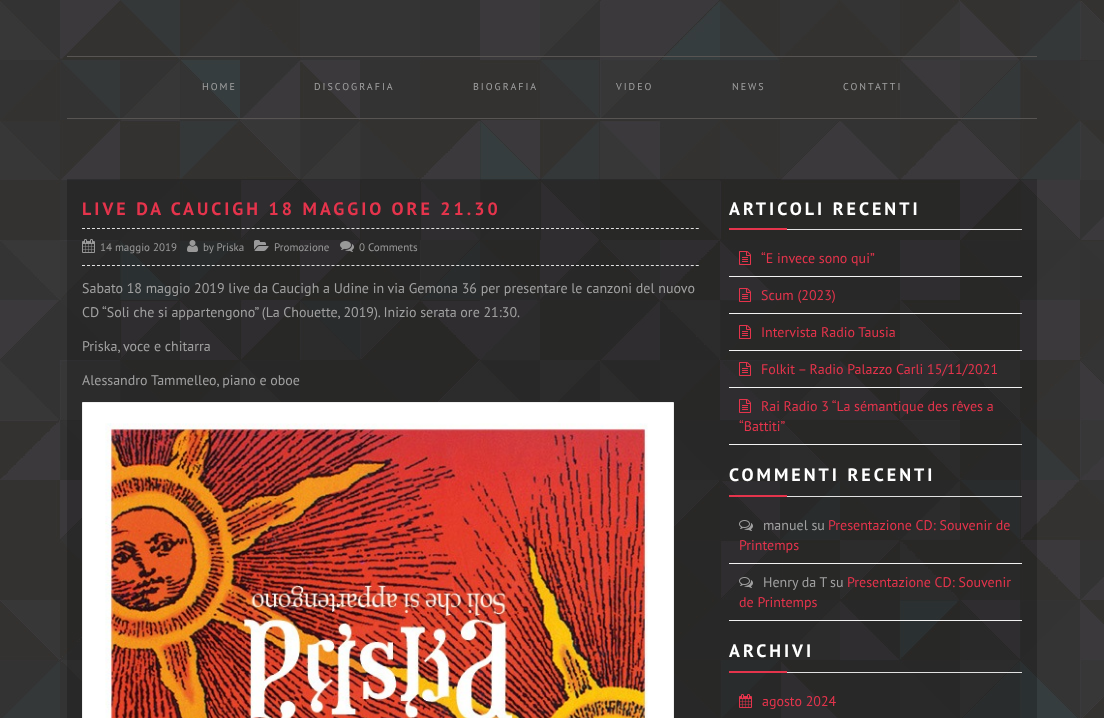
<svg xmlns="http://www.w3.org/2000/svg" width="1104" height="718" viewBox="0 0 1104 718">
  <rect width="100%" height="100%" fill="#fff"/>
  <image x="0" y="0" width="1104" height="718" href="img/1.png"/>
  <path d="M67 56h970v1H67z" fill="#585553"/>
  <path d="M67 118h970v1H67z" fill="#585553"/>
  <path d="M67 179h970v539H67z" fill="#00000033"/>
  <path d="M82 228.5H699" fill="none" stroke="#e1e1e1" stroke-dasharray="3 1.99"/>
  <path d="M82 265.5H699" fill="none" stroke="#e1e1e1" stroke-dasharray="3 1.99"/>
  <image x="82" y="239" width="13" height="14" href="img/2.png"/>
  <image x="187" y="240" width="11" height="12" href="img/3.png"/>
  <image x="254" y="240" width="15" height="11" href="img/4.png"/>
  <image x="340" y="241" width="14" height="11" href="img/5.png"/>
  <path d="M82.5 402.5h591v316H82.5z" fill="#fff" stroke="#f0f0f0"/>
  <image x="105" y="423" width="543" height="295" href="img/6.png"/>
  <path d="M729 228h58v2H729z" fill="#e5344c"/>
  <path d="M787 229h235v1H787z" fill="#e1e1e1"/>
  <path d="M729 276h293v1H729z" fill="#f2f2f2"/>
  <image x="739" y="251" width="12" height="14" href="img/7.png"/>
  <path d="M729 313h293v1H729z" fill="#f2f2f2"/>
  <image x="739" y="288" width="12" height="14" href="img/8.png"/>
  <path d="M729 350h293v1H729z" fill="#f2f2f2"/>
  <image x="739" y="325" width="12" height="14" href="img/9.png"/>
  <path d="M729 387h293v1H729z" fill="#f2f2f2"/>
  <image x="739" y="362" width="12" height="14" href="img/10.png"/>
  <path d="M729 444h293v1H729z" fill="#f2f2f2"/>
  <image x="739" y="399" width="12" height="14" href="img/11.png"/>
  <path d="M729 495h58v2H729z" fill="#e5344c"/>
  <path d="M787 496h235v1H787z" fill="#e1e1e1"/>
  <path d="M729 563h293v1H729z" fill="#f2f2f2"/>
  <image x="739" y="520" width="14" height="11" href="img/12.png"/>
  <path d="M729 620h293v1H729z" fill="#f2f2f2"/>
  <image x="739" y="577" width="14" height="11" href="img/13.png"/>
  <path d="M729 671h58v2H729z" fill="#e5344c"/>
  <path d="M787 672h235v1H787z" fill="#e1e1e1"/>
  <image x="739" y="694" width="13" height="14" href="img/14.png"/>
  <g font-family="PT Sans" font-size="10" letter-spacing="2" fill="#a1a1a1">
    <text x="202" y="90">HOME</text>
    <text x="314" y="90">DISCOGRAFIA</text>
    <text x="473" y="90">BIOGRAFIA</text>
    <text x="616" y="90">VIDEO</text>
    <text x="732" y="90">NEWS</text>
    <text x="843" y="90">CONTATTI</text>
  </g>
  <text x="82" y="215" font-family="PT Sans" font-size="18" font-weight="bold" letter-spacing="3" fill="#e5344c">LIVE DA CAUCIGH 18 MAGGIO ORE 21.30</text>
  <g font-family="PT Sans" font-size="11" fill="#999">
    <text x="100" y="251">14 maggio 2019</text>
    <text x="203" y="251">by Priska</text>
    <text x="274" y="251">Promozione</text>
    <text x="359" y="251">0 Comments</text>
  </g>
  <g font-family="PT Sans" font-size="14" fill="#a1a1a1">
    <text x="82" y="293">Sabato 18 maggio 2019 live da Caucigh a Udine in via Gemona 36 per presentare le canzoni del nuovo</text>
    <text x="82" y="317">CD “Soli che si appartengono” (La Chouette, 2019). Inizio serata ore 21:30.</text>
    <text x="82" y="351">Priska, voce e chitarra</text>
    <text x="82" y="385">Alessandro Tammelleo, piano e oboe</text>
  </g>
  <text x="729" y="215" font-family="PT Sans" font-size="18" font-weight="bold" letter-spacing="3" fill="#fff">ARTICOLI RECENTI</text>
  <g font-family="PT Sans" font-size="14" fill="#e5344c">
    <text x="761" y="263">“E invece sono qui”</text>
    <text x="761" y="300">Scum (2023)</text>
    <text x="761" y="337">Intervista Radio Tausia</text>
    <text x="761" y="374">Folkit – Radio Palazzo Carli 15/11/2021</text>
    <text x="761" y="411">Rai Radio 3 “La sémantique des rêves a</text>
    <text x="739" y="431">“Battiti”</text>
  </g>
  <text x="729" y="481" font-family="PT Sans" font-size="18" font-weight="bold" letter-spacing="3" fill="#fff">COMMENTI RECENTI</text>
  <text x="763" y="530" font-family="PT Sans" font-size="14" fill="#a1a1a1">manuel su</text>
  <g font-family="PT Sans" font-size="14" fill="#e5344c">
    <text x="828" y="530">Presentazione CD: Souvenir de</text>
    <text x="739" y="550">Printemps</text>
  </g>
  <g font-family="PT Sans" font-size="14" fill="#a1a1a1">
    <text x="763" y="587">Henry da T</text>
    <text x="830" y="587">su</text>
  </g>
  <g font-family="PT Sans" font-size="14" fill="#e5344c">
    <text x="847" y="587">Presentazione CD: Souvenir</text>
    <text x="739" y="607">de Printemps</text>
  </g>
  <text x="729" y="657" font-family="PT Sans" font-size="18" font-weight="bold" letter-spacing="3" fill="#fff">ARCHIVI</text>
  <text x="762" y="706" font-family="PT Sans" font-size="14" fill="#e5344c">agosto 2024</text>
</svg>
